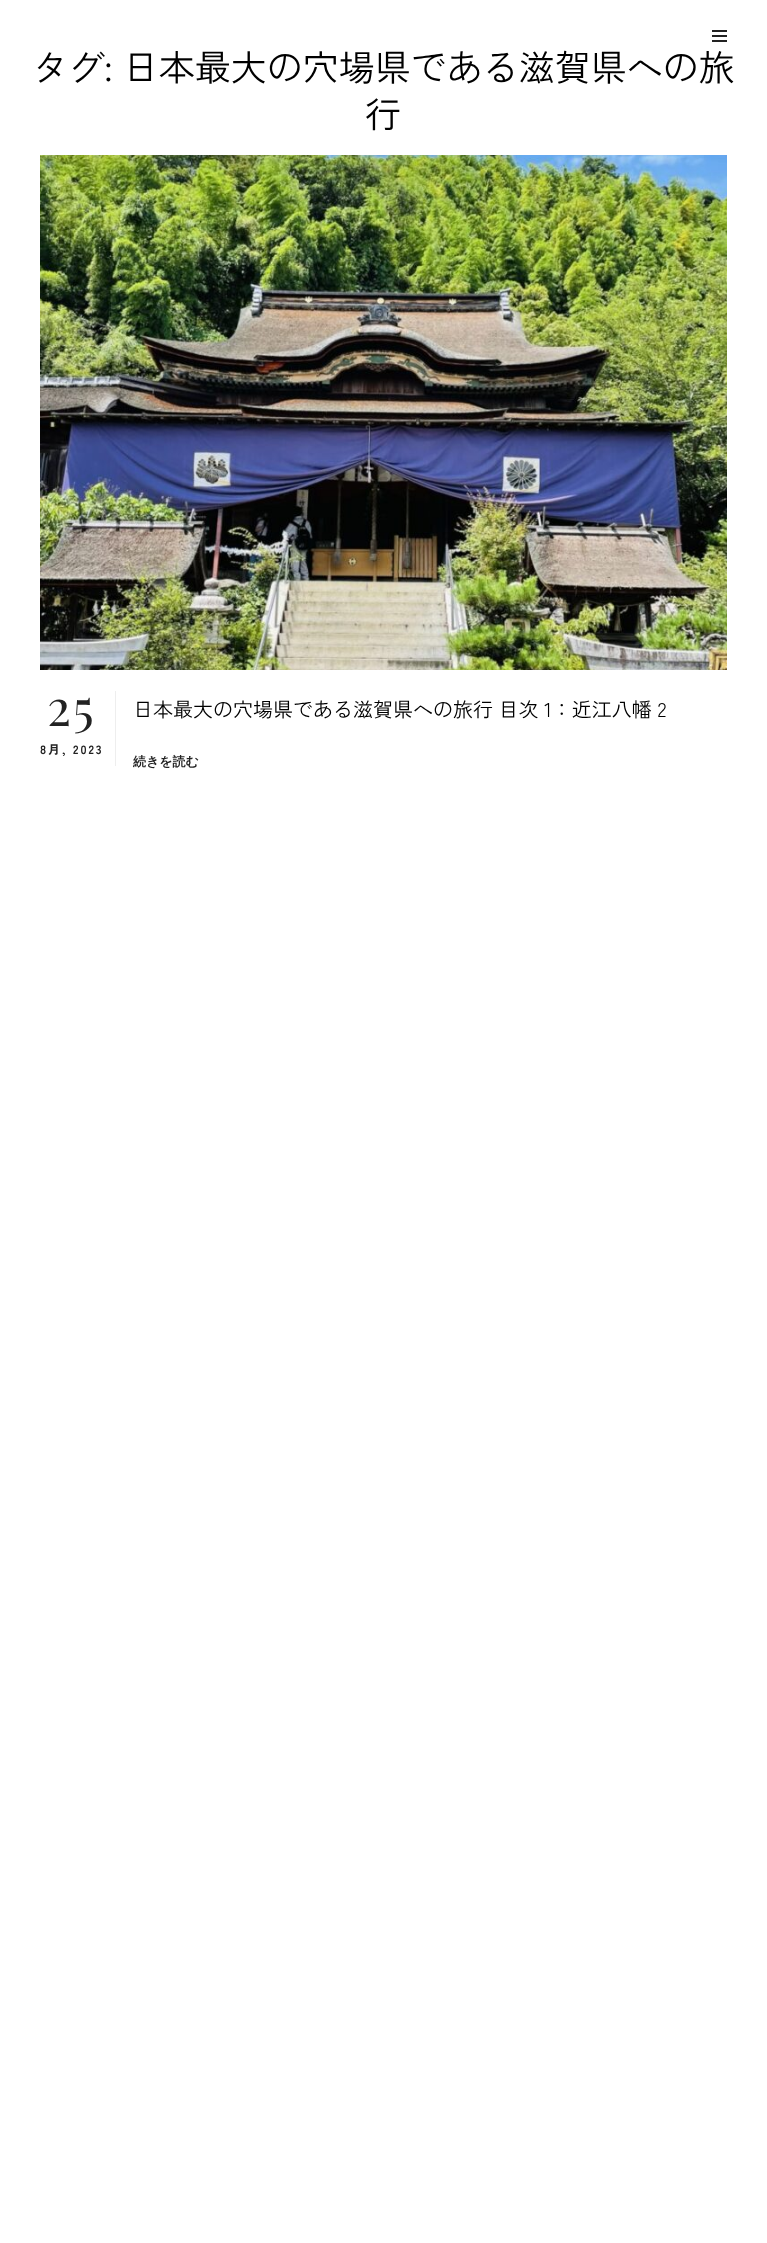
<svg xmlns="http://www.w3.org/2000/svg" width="767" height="2243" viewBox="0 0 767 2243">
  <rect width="100%" height="100%" fill="#fff"/>
  <path d="M712 30h15v2H712z" fill="#222"/>
  <path d="M712 35h15v2H712z" fill="#222"/>
  <path d="M712 40h15v2H712z" fill="#222"/>
  <image x="40" y="155" width="687" height="515" href="img/1.png"/>
  <path d="M115 691h1v75H115z" fill="#eee"/>
  <g font-family="Zen Kaku Gothic Antique" font-size="36" fill="#000">
    <text x="32" y="81">タグ: 日本最大の穴場県である滋賀県への旅</text>
    <text x="365" y="128">行</text>
  </g>
  <text x="47" y="726" font-family="Playfair Display" font-size="50" letter-spacing="2" fill="#222">25</text>
  <text x="40" y="754" font-family="Zen Kaku Gothic Antique" font-size="12" font-weight="bold" letter-spacing="2" fill="#222">8月, 2023</text>
  <text x="133" y="717" font-family="Zen Kaku Gothic Antique" font-size="20" fill="#000">日本最大の穴場県である滋賀県への旅行 目次 1：近江八幡 2</text>
  <text x="133" y="766" font-family="WenQuanYi Zen Hei" font-size="13" font-weight="bold" fill="#222">続きを読む</text>
</svg>
